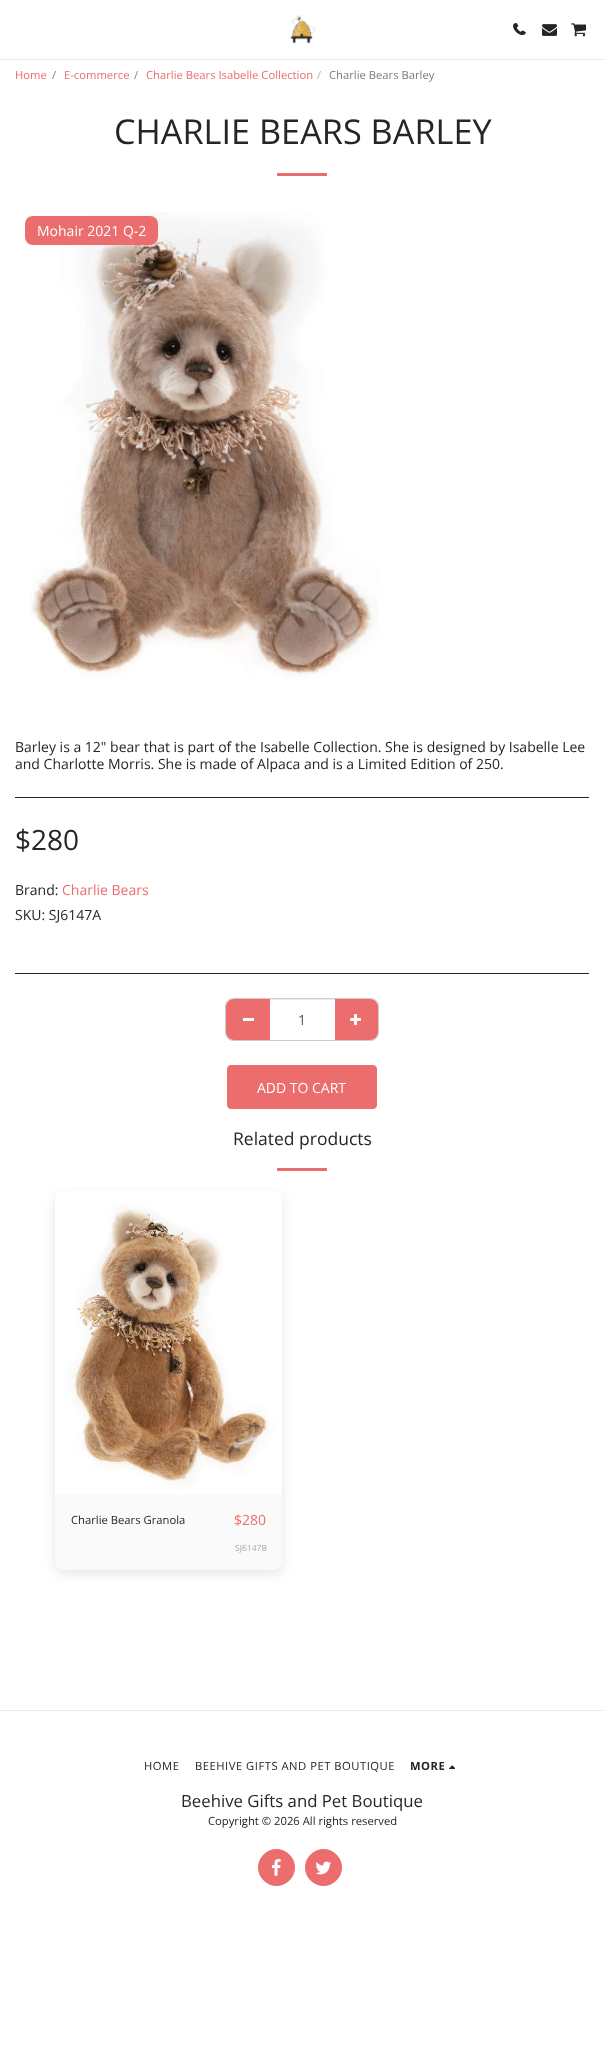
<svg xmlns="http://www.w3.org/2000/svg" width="604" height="2062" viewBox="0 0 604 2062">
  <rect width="100%" height="100%" fill="#fff"/>
  <path d="M0 59h604v1H0z" fill="#ebebeb"/>
  <image x="290" y="15" width="26" height="29" href="img/1.png"/>
  <image x="514" y="23" width="12" height="12" href="img/2.png"/>
  <image x="513" y="23" width="12" height="12" href="img/3.png"/>
  <image x="542" y="24" width="15" height="12" href="img/4.png"/>
  <image x="571" y="23" width="15" height="14" href="img/5.png"/>
  <path d="M277 173h50v3H277z" fill="#eb6d6d"/>
  <image x="30" y="212" width="349" height="468" href="img/6.png"/>
  <rect x="25" y="216" width="133" height="29" rx="8" fill="#eb6d6d"/>
  <path d="M15 797h574v1H15z" fill="#252525"/>
  <path d="M15 973h574v1H15z" fill="#252525"/>
  <rect x="225.5" y="998.5" width="153" height="42" rx="7.5" fill="none" stroke="#ccc"/>
  <path d="M234 999H271V1040H234C229.5 1040 226 1036.5 226 1032V1007C226 1002.5 229.5 999 234 999Z" fill="#eb6d6d"/>
  <path d="M243 1018h11v3H243z" fill="#fff"/>
  <path d="M334 999H370C374.5 999 378 1002.5 378 1007V1032C378 1036.5 374.5 1040 370 1040H334Z" fill="#eb6d6d"/>
  <path d="M270 1000h65v40H270z" fill="#fff"/>
  <path d="M270 999h65v1H270z" fill="#ececec"/>
  <image x="350" y="1014" width="11" height="11" href="img/7.png"/>
  <rect x="227.5" y="1065.5" width="149" height="43" rx="3.5" fill="#eb6d6d" stroke="#eb6d6d"/>
  <path d="M277 1168h50v3H277z" fill="#eb6d6d"/>
  <rect x="55" y="1195" width="227" height="379" rx="8" fill="#81818133" filter="blur(6px)"/>
  <rect x="55" y="1191" width="227" height="379" rx="8" fill="#fafafa"/>
  <image x="55" y="1191" width="227" height="303" href="img/8.png"/>
  <path d="M0 1710h604v1H0z" fill="#ebebeb"/>
  <image x="449" y="1765" width="6" height="4" href="img/9.png"/>
  <circle cx="276.5" cy="1867.5" r="18" fill="#eb6d6d" stroke="#eb6d6d"/>
  <image x="271" y="1859" width="10" height="17" href="img/10.png"/>
  <circle cx="323.5" cy="1867.5" r="18" fill="#eb6d6d" stroke="#eb6d6d"/>
  <image x="315" y="1861" width="16" height="14" href="img/11.png"/>
  <text x="15" y="79" font-family="Open Sans" font-size="11.25" fill="#eb6d6d">Home</text>
  <text x="52" y="79" font-family="Open Sans" font-size="11.25" fill="#7c7c7c">/</text>
  <text x="64" y="79" font-family="Open Sans" font-size="11.25" fill="#eb6d6d">E-commerce</text>
  <text x="134" y="79" font-family="Open Sans" font-size="11.25" fill="#7c7c7c">/</text>
  <text x="146" y="79" font-family="Open Sans" font-size="11.25" fill="#eb6d6d">Charlie Bears Isabelle Collection</text>
  <text x="317" y="79" font-family="Open Sans" font-size="11.25" fill="#b1b1b1">/</text>
  <text x="329" y="79" font-family="Open Sans" font-size="11.25" fill="#7c7c7c">Charlie Bears Barley</text>
  <text x="114" y="144" font-family="Open Sans" font-size="34.25" fill="#252525">CHARLIE BEARS BARLEY</text>
  <text x="37" y="236" font-family="Open Sans" font-size="14" fill="#fff">Mohair 2021 Q-2</text>
  <g font-family="Open Sans" font-size="14" fill="#252525">
    <text x="15" y="752">Barley is a 12" bear that is part of the Isabelle Collection. She is designed by Isabelle Lee</text>
    <text x="15" y="769">and Charlotte Morris. She is made of Alpaca and is a Limited Edition of 250.</text>
  </g>
  <text x="15" y="850" font-family="Open Sans" font-size="28" fill="#252525">$280</text>
  <text x="15" y="895" font-family="Open Sans" font-size="14" fill="#252525">Brand:</text>
  <text x="62" y="895" font-family="Open Sans" font-size="14" fill="#eb6d6d">Charlie Bears</text>
  <text x="15" y="920" font-family="Open Sans" font-size="14" fill="#252525">SKU: SJ6147A</text>
  <text x="298" y="1025" font-family="Open Sans" font-size="14" fill="#555">1</text>
  <text x="257" y="1093" font-family="Open Sans" font-size="14" fill="#fff">ADD TO CART</text>
  <text x="233" y="1145" font-family="Open Sans" font-size="17.5" fill="#252525">Related products</text>
  <text x="71" y="1524" font-family="Open Sans" font-size="11.25" fill="#252525">Charlie Bears Granola</text>
  <text x="234" y="1525" font-family="Open Sans" font-size="14" fill="#eb6d6d">$280</text>
  <text x="235" y="1551" font-family="Open Sans" font-size="8.5" fill="#a5a5a5">SJ6147B</text>
  <g font-family="Open Sans" font-size="11.25" letter-spacing="0.5" fill="#252525">
    <text x="144" y="1770">HOME</text>
    <text x="195" y="1770">BEEHIVE GIFTS AND PET BOUTIQUE</text>
  </g>
  <text x="410" y="1770" font-family="Open Sans" font-size="11.25" font-weight="bold" letter-spacing="0.5" fill="#252525">MORE</text>
  <text x="181" y="1807" font-family="Open Sans" font-size="16.75" fill="#252525">Beehive Gifts and Pet Boutique</text>
  <text x="208" y="1825" font-family="Open Sans" font-size="11.25" fill="#252525">Copyright © 2026 All rights reserved</text>
</svg>
